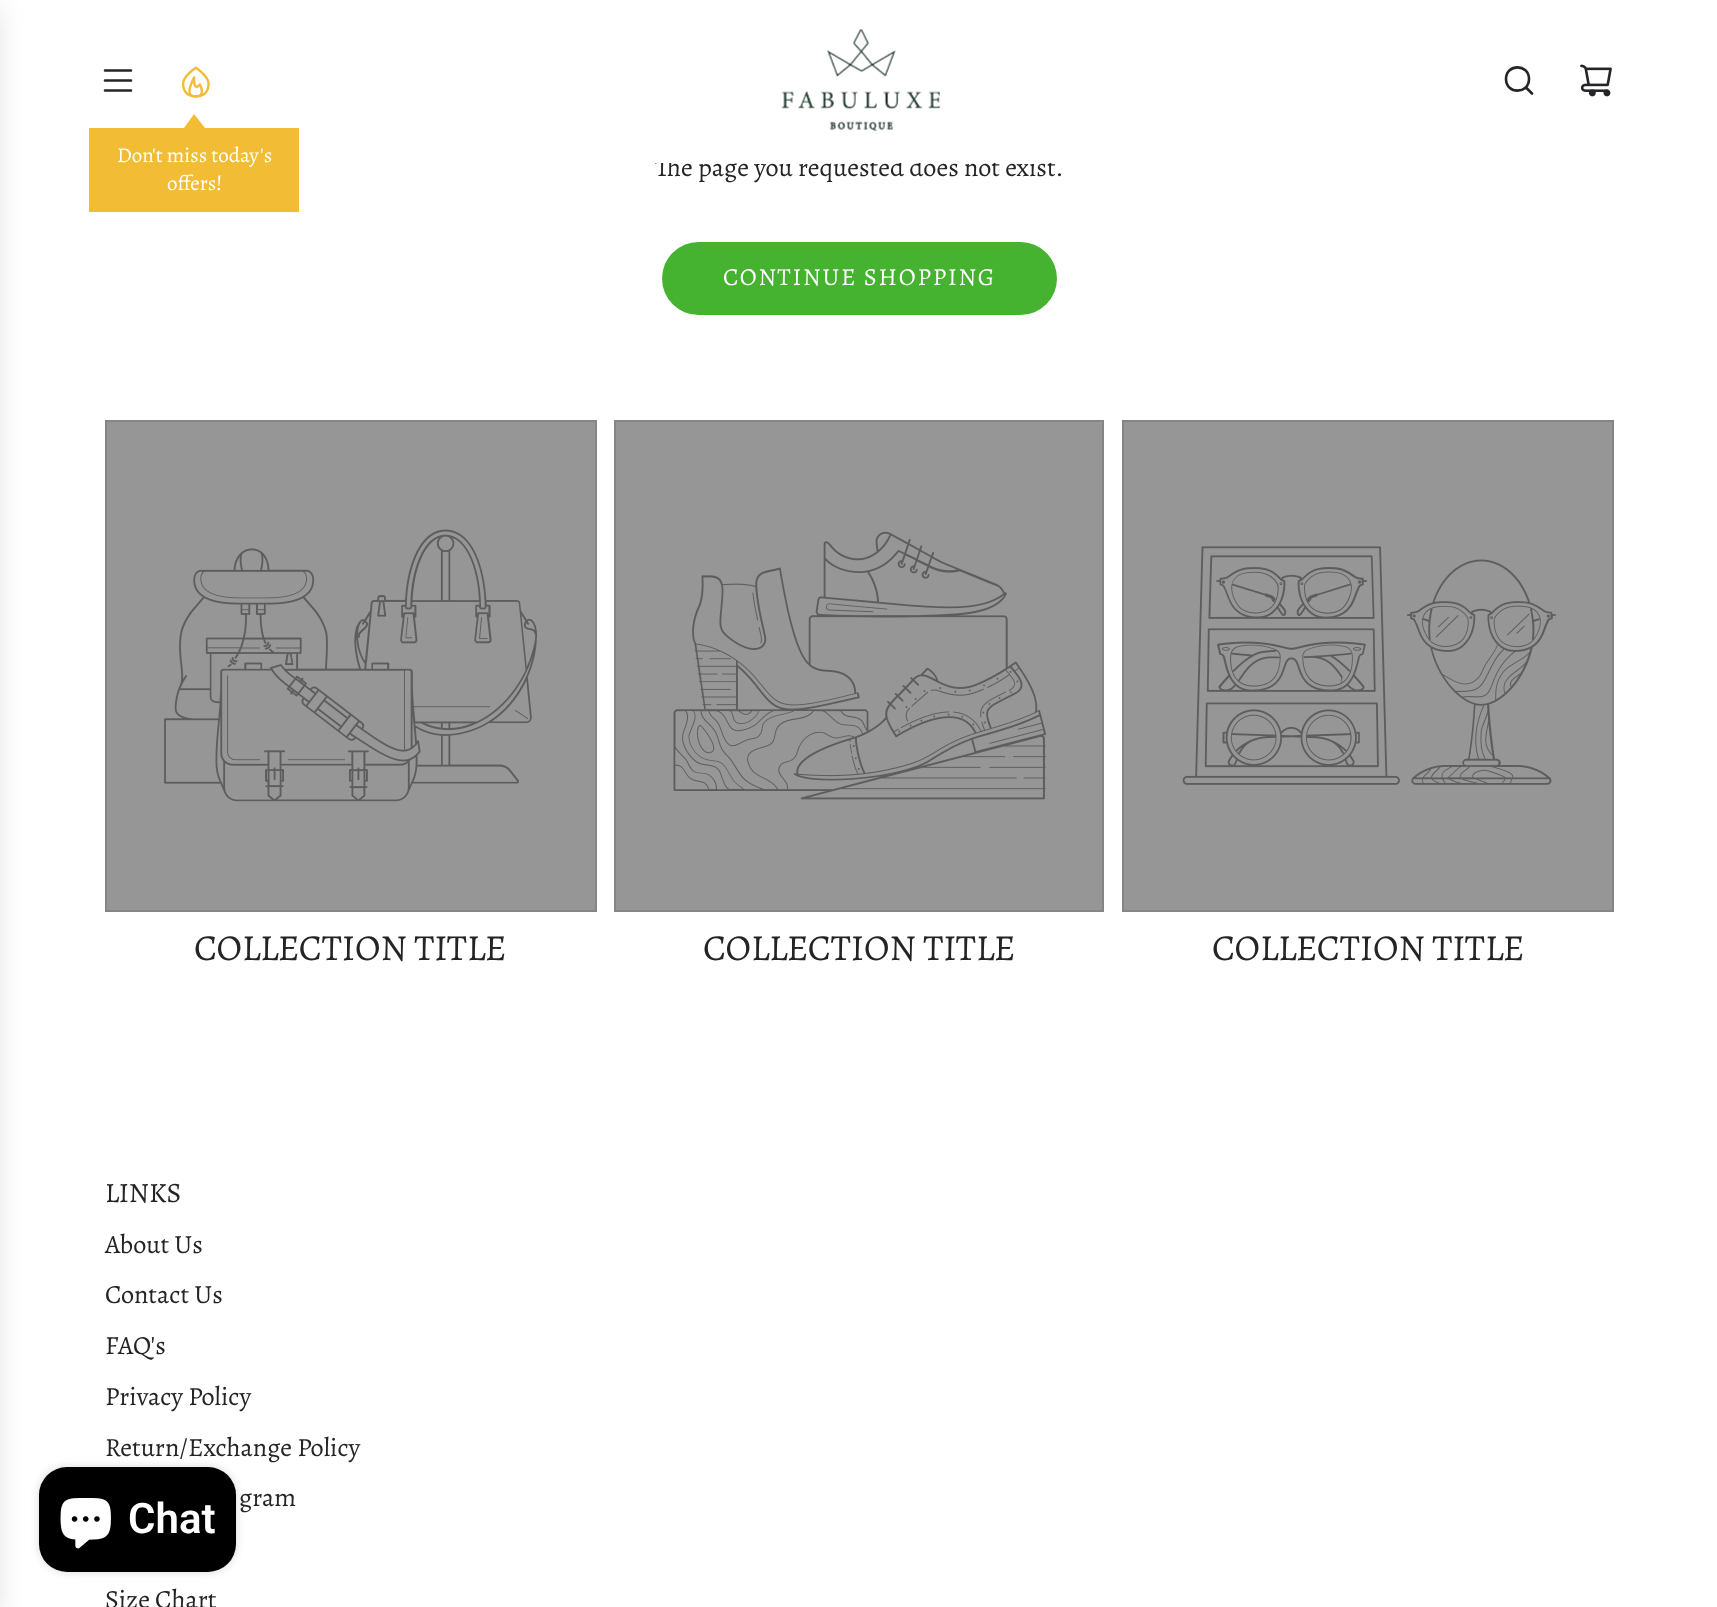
<svg xmlns="http://www.w3.org/2000/svg" width="1717" height="1607" viewBox="0 0 1717 1607">
  <rect width="100%" height="100%" fill="#fff"/>
  <path d="M-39 9h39v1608H-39z" fill="#0000001a" filter="blur(13px)"/>
  <image x="781" y="29" width="159" height="102" href="img/1.png"/>
  <path d="M1526.5 88L1532 93.5M1506 79C1506 94.5 1529 94.5 1529 79C1529 63.5 1506 63.5 1506 79Z" fill="none" stroke="#262428" stroke-width="2.6" stroke-linecap="round" stroke-linejoin="round"/>
  <image x="1580" y="64" width="32" height="33" href="img/2.png"/>
  <path d="M105 70.5H131M105 80.5H131M105 90.5H131" fill="none" stroke="#262428" stroke-width="2.6" stroke-linecap="round" stroke-linejoin="round"/>
  <image x="181" y="66" width="29" height="32" href="img/3.png"/>
  <path d="M89 128h210v84H89z" fill="#f2bd35"/>
  <path d="M205 128H184L194 114Z" fill="#f2bd35"/>
  <rect x="662" y="242" width="395" height="73" rx="36.5" fill="#45b330"/>
  <path d="M106 421h490v490H106z" fill="#969696" stroke="#858585" stroke-width="2"/>
  <image x="164" y="529" width="373" height="273" href="img/4.png"/>
  <path d="M615 421h488v490H615z" fill="#969696" stroke="#858585" stroke-width="2"/>
  <image x="673" y="531" width="373" height="269" href="img/5.png"/>
  <path d="M1123 421h490v490H1123z" fill="#969696" stroke="#858585" stroke-width="2"/>
  <image x="1182" y="546" width="374" height="239" href="img/6.png"/>
  <rect x="39" y="1467" width="197" height="105" rx="28" fill="#00000026" filter="blur(4.5px)"/>
  <rect x="39" y="1467" width="197" height="105" rx="28" fill="#000"/>
  <image x="60" y="1498" width="51" height="51" href="img/7.png"/>
  <g font-family="Alegreya" font-size="21" fill="#fff">
    <text x="117" y="162">Don't miss today's</text>
    <text x="167" y="190">offers!</text>
  </g>
  <text x="655" y="176" font-family="Alegreya" font-size="26.25" fill="#242424">The page you requested does not exist.</text>
  <path d="M655 156h397v7H655z" fill="#fff"/>
  <text x="723" y="285" font-family="Alegreya" font-size="24.5" letter-spacing="1.75" fill="#fff">CONTINUE SHOPPING</text>
  <g font-family="Alegreya" font-size="36.75" fill="#242424">
    <text x="194" y="960">COLLECTION TITLE</text>
    <text x="703" y="960">COLLECTION TITLE</text>
    <text x="1212" y="960">COLLECTION TITLE</text>
  </g>
  <text x="105" y="1202" font-family="Alegreya" font-size="28" fill="#242424">LINKS</text>
  <g font-family="Alegreya" font-size="26.25" fill="#242424">
    <text x="105" y="1253">About Us</text>
    <text x="105" y="1303">Contact Us</text>
    <text x="105" y="1354">FAQ's</text>
    <text x="105" y="1405">Privacy Policy</text>
    <text x="105" y="1456">Return/Exchange Policy</text>
    <text x="239" y="1506">gram</text>
    <text x="105" y="1608">Size Chart</text>
  </g>
  <text x="128" y="1533" font-family="Roboto" font-size="42" font-weight="600" fill="#fff">Chat</text>
</svg>
